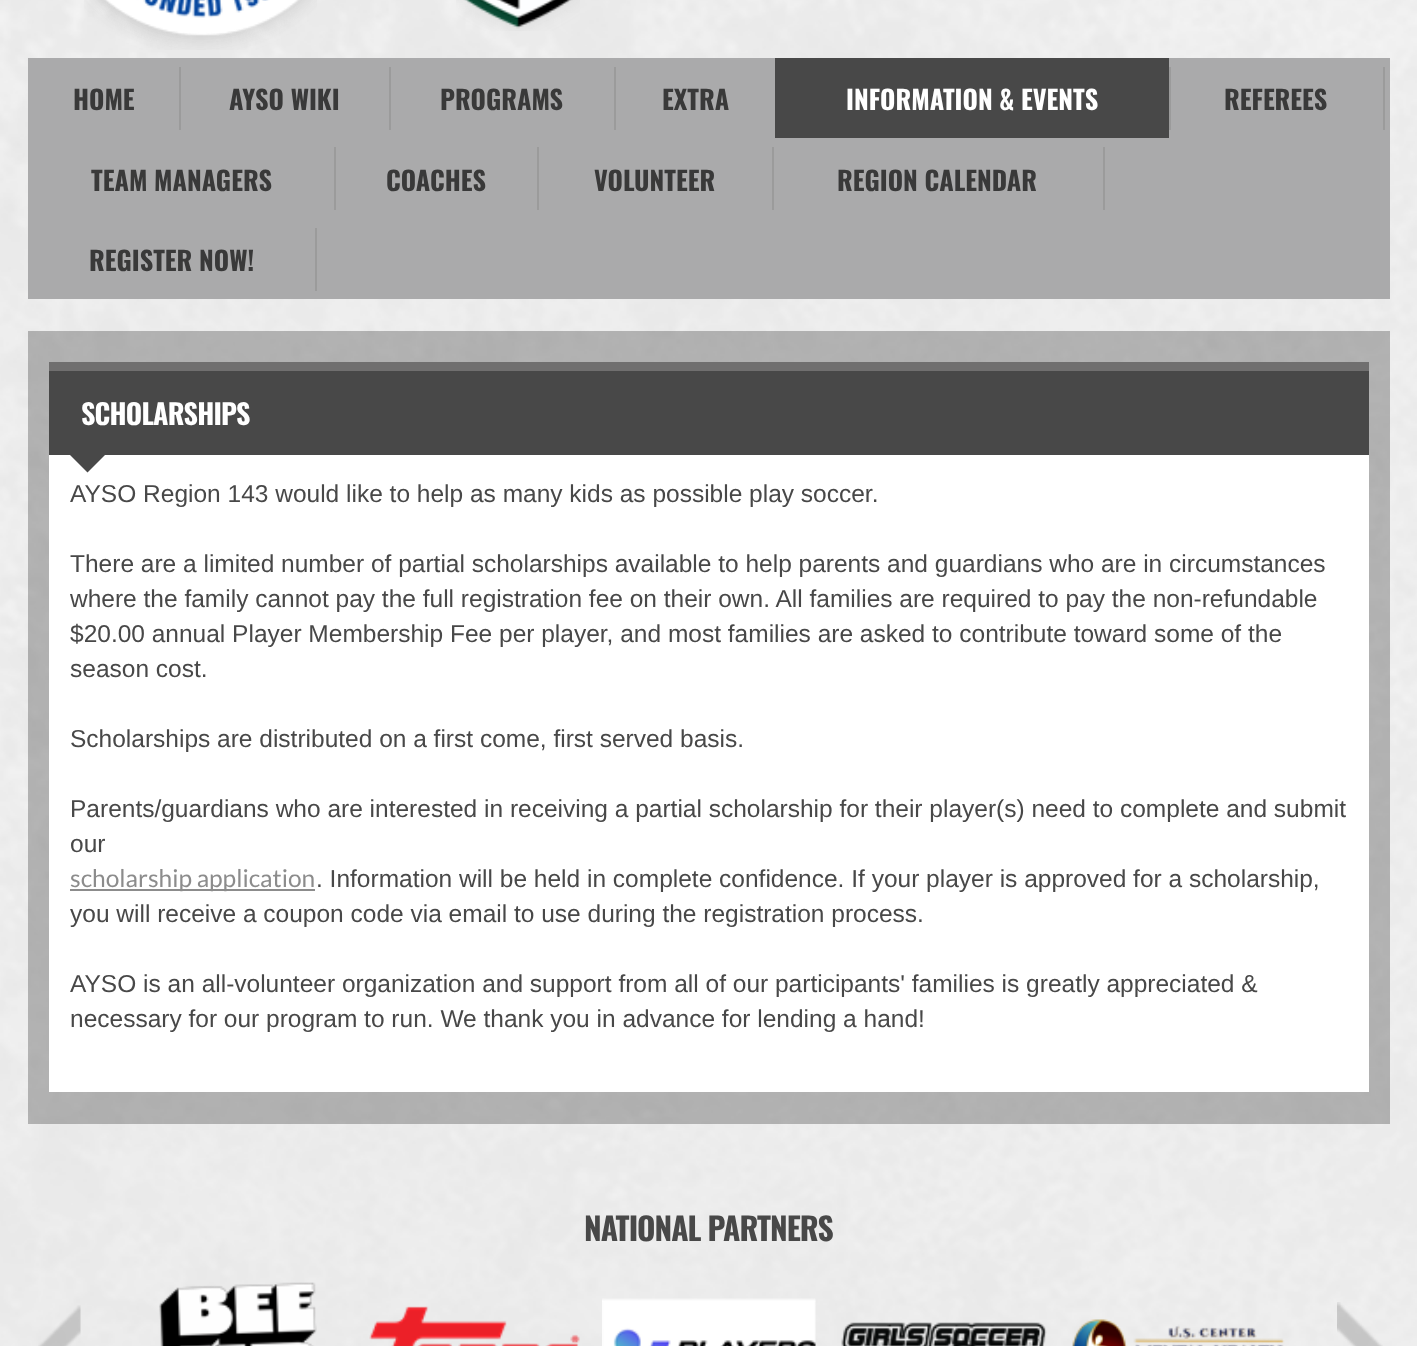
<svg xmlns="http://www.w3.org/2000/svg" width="1417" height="1346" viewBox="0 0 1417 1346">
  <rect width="100%" height="100%" fill="#fff"/>
  <image x="0" y="0" width="1417" height="1346" href="img/1.png"/>
  <image x="84" y="0" width="233" height="50" href="img/2.png"/>
  <image x="456" y="0" width="124" height="31" href="img/3.png"/>
  <path d="M28 58h1362v241H28z" fill="#aaaaab"/>
  <path d="M179 67h2v63H179z" fill="#9b9b9b"/>
  <path d="M389 67h2v63H389z" fill="#9b9b9b"/>
  <path d="M614 67h2v63H614z" fill="#9b9b9b"/>
  <path d="M775 58h394v80H775z" fill="#484848"/>
  <path d="M1169 67h2v63H1169z" fill="#9b9b9b"/>
  <path d="M1383 67h2v63H1383z" fill="#9b9b9b"/>
  <path d="M334 147h2v63H334z" fill="#9b9b9b"/>
  <path d="M537 147h2v63H537z" fill="#9b9b9b"/>
  <path d="M772 147h2v63H772z" fill="#9b9b9b"/>
  <path d="M1103 147h2v63H1103z" fill="#9b9b9b"/>
  <path d="M315 228h2v63H315z" fill="#9b9b9b"/>
  <path d="M28 331h1362v793H28z" fill="#00000040"/>
  <path d="M49 371h1320v84H49z" fill="#484848"/>
  <path d="M49 362h1320v9H49z" fill="#706f6f"/>
  <path d="M49 455h1320v637H49z" fill="#fff"/>
  <path d="M70 455H105L87.5 472.5Z" fill="#484848"/>
  <path d="M70 889h245v2H70z" fill="#8c8c8c"/>
  <image x="38" y="1305" width="43" height="41" href="img/4.png"/>
  <image x="159" y="1282" width="158" height="64" href="img/5.png"/>
  <image x="369" y="1306" width="211" height="40" href="img/6.png"/>
  <image x="602" y="1298" width="214" height="48" href="img/7.png"/>
  <image x="841" y="1322" width="206" height="24" href="img/8.png"/>
  <image x="1072" y="1319" width="213" height="27" href="img/9.png"/>
  <image x="1337" y="1302" width="46" height="44" href="img/10.png"/>
  <g font-family="Oswald" font-size="26.25" font-weight="bold" fill="#393939">
    <text x="73" y="110">HOME</text>
    <text x="229" y="110">AYSO WIKI</text>
    <text x="440" y="110">PROGRAMS</text>
    <text x="662" y="110">EXTRA</text>
  </g>
  <text x="846" y="110" font-family="Oswald" font-size="26.25" font-weight="bold" fill="#fff">INFORMATION &amp; EVENTS</text>
  <g font-family="Oswald" font-size="26.25" font-weight="bold" fill="#393939">
    <text x="1224" y="110">REFEREES</text>
    <text x="91" y="191">TEAM MANAGERS</text>
    <text x="386" y="191">COACHES</text>
    <text x="594" y="191">VOLUNTEER</text>
    <text x="837" y="191">REGION CALENDAR</text>
    <text x="89" y="271">REGISTER NOW!</text>
  </g>
  <text x="81" y="425" font-family="Oswald" font-size="28" font-weight="bold" letter-spacing="-0.8" fill="#fff">SCHOLARSHIPS</text>
  <g font-family="Liberation Sans" font-size="24.5" fill="#484848">
    <text x="70" y="502">AYSO Region 143 would like to help as many kids as possible play soccer.</text>
    <text x="70" y="572">There are a limited number of partial scholarships available to help parents and guardians who are in circumstances</text>
    <text x="70" y="607">where the family cannot pay the full registration fee on their own. All families are required to pay the non-refundable</text>
    <text x="70" y="642">$20.00 annual Player Membership Fee per player, and most families are asked to contribute toward some of the</text>
    <text x="70" y="677">season cost.</text>
    <text x="70" y="747">Scholarships are distributed on a first come, first served basis.</text>
    <text x="70" y="817">Parents/guardians who are interested in receiving a partial scholarship for their player(s) need to complete and submit</text>
    <text x="70" y="852">our</text>
  </g>
  <text x="70" y="887" font-family="Lato" font-size="24.5" fill="#8c8c8c">scholarship application</text>
  <g font-family="Liberation Sans" font-size="24.5" fill="#484848">
    <text x="316" y="887">. Information will be held in complete confidence. If your player is approved for a scholarship,</text>
    <text x="70" y="922">you will receive a coupon code via email to use during the registration process.</text>
    <text x="70" y="992">AYSO is an all-volunteer organization and support from all of our participants' families is greatly appreciated &amp;</text>
    <text x="70" y="1027">necessary for our program to run. We thank you in advance for lending a hand!</text>
  </g>
  <text x="584" y="1241" font-family="Oswald" font-size="31.5" font-weight="bold" letter-spacing="-1" fill="#484848">NATIONAL PARTNERS</text>
</svg>
